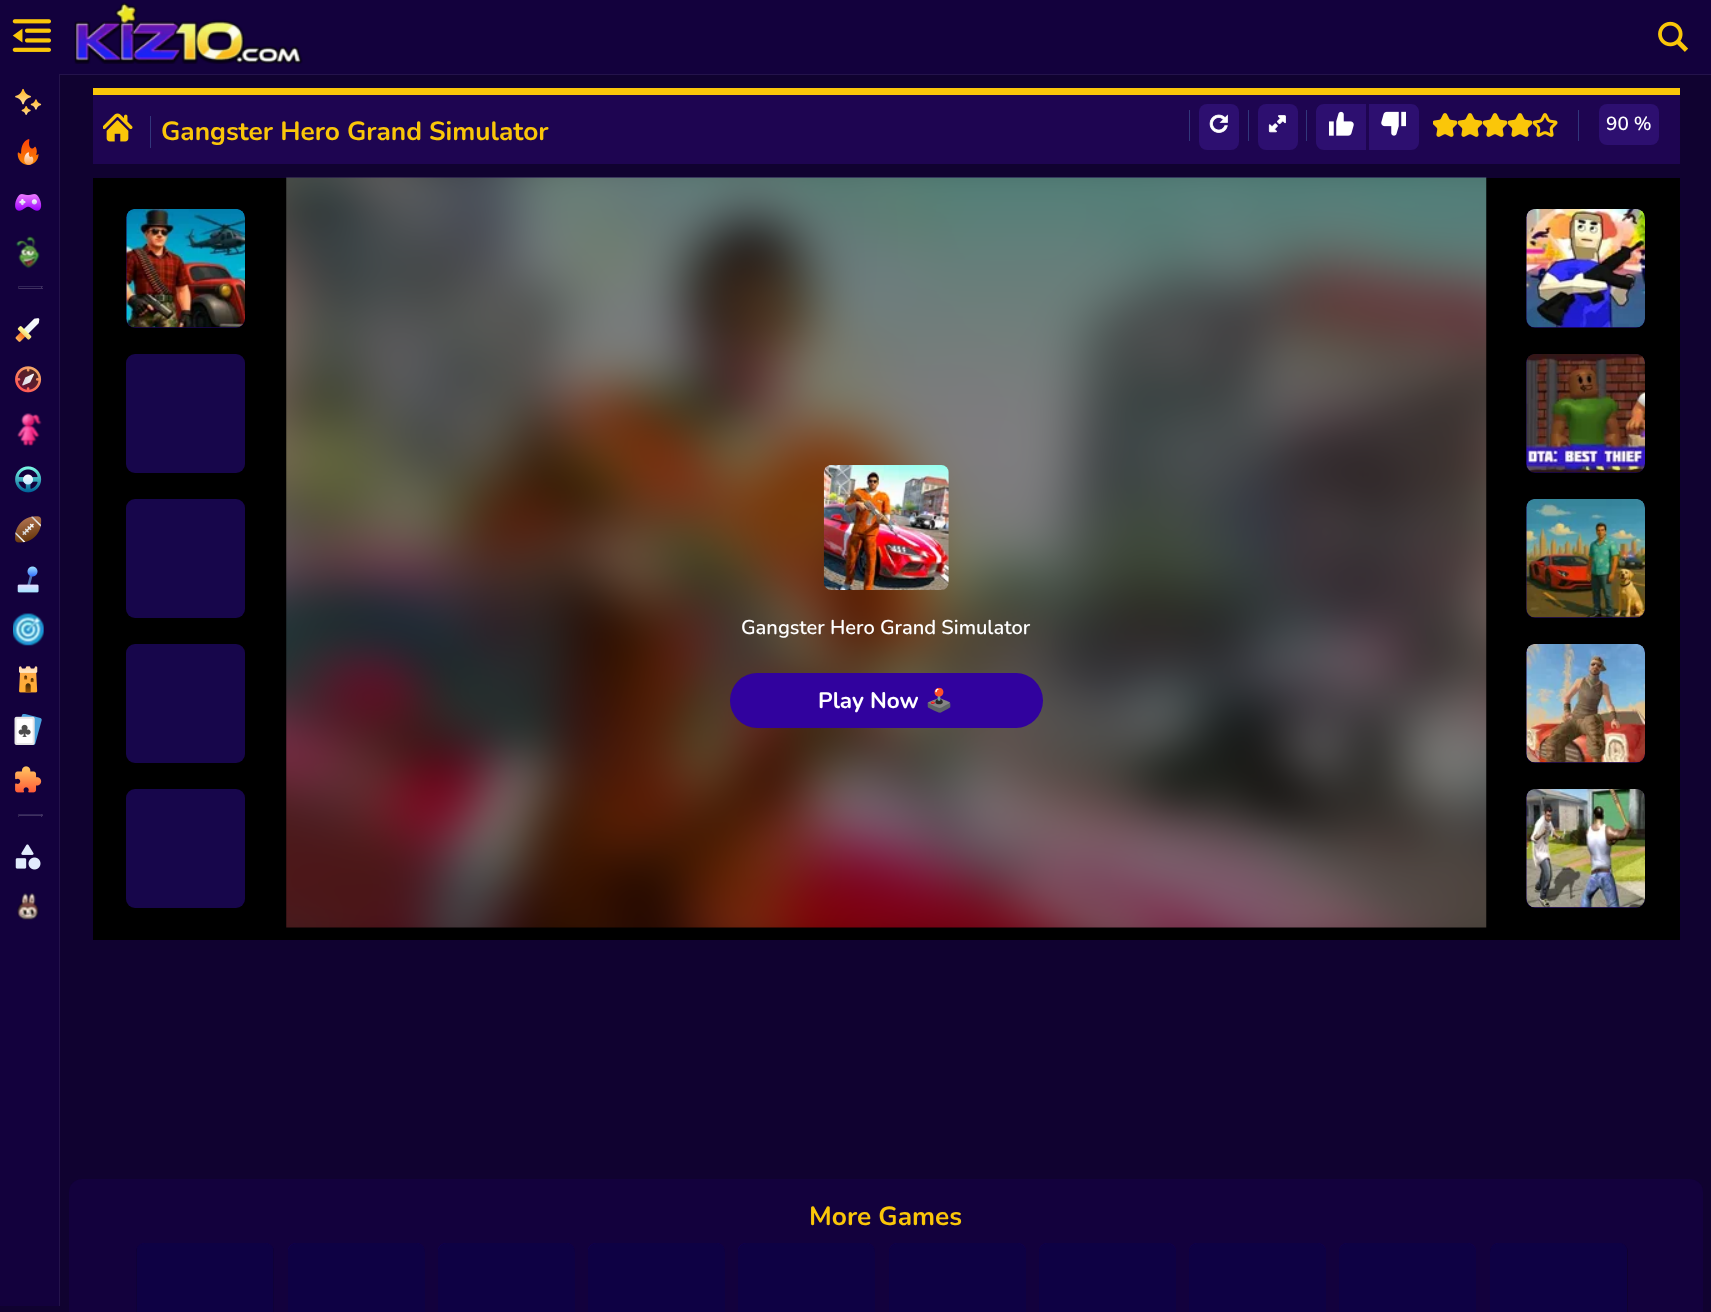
<svg xmlns="http://www.w3.org/2000/svg" width="1711" height="1312" viewBox="0 0 1711 1312">
  <rect width="100%" height="100%" fill="#100230"/>
  <path d="M0 0h1711v74H0z" fill="#13013d"/>
  <path d="M60 74h1651v1H60z" fill="#24134b"/>
  <image x="12" y="19" width="39" height="33" href="img/1.png"/>
  <image x="74" y="2" width="229" height="62" href="img/2.png"/>
  <image x="1658" y="21" width="31" height="31" href="img/3.png"/>
  <path d="M0 74h59v1232H0z" fill="#13013d"/>
  <path d="M59 74h1v1232H59z" fill="#24134b"/>
  <image x="15" y="88" width="27" height="27" href="img/4.png"/>
  <image x="17" y="139" width="22" height="26" href="img/5.png"/>
  <image x="15" y="194" width="27" height="17" href="img/6.png"/>
  <image x="15" y="236" width="25" height="33" href="img/7.png"/>
  <path d="M18 286h25v1H18z" fill="#302458"/>
  <path d="M41 286h1v3H41z" fill="#3f3060"/>
  <path d="M18 288h25v1H18z" fill="#3f3060"/>
  <path d="M18 286h1v3H18z" fill="#2f2151"/>
  <image x="15" y="318" width="25" height="24" href="img/8.png"/>
  <image x="15" y="366" width="27" height="27" href="img/9.png"/>
  <image x="17" y="413" width="25" height="33" href="img/10.png"/>
  <image x="15" y="466" width="27" height="27" href="img/11.png"/>
  <image x="15" y="516" width="27" height="27" href="img/12.png"/>
  <image x="17" y="566" width="22" height="27" href="img/13.png"/>
  <image x="13" y="613" width="31" height="33" href="img/14.png"/>
  <image x="19" y="666" width="19" height="27" href="img/15.png"/>
  <image x="14" y="714" width="28" height="31" href="img/16.png"/>
  <image x="15" y="766" width="27" height="27" href="img/17.png"/>
  <path d="M18 814h25v1H18z" fill="#302458"/>
  <path d="M41 814h1v3H41z" fill="#3f3060"/>
  <path d="M18 815h25v1H18z" fill="#3f3060"/>
  <path d="M18 814h1v3H18z" fill="#2f2151"/>
  <image x="15" y="844" width="26" height="26" href="img/18.png"/>
  <image x="17" y="893" width="23" height="27" href="img/19.png"/>
  <path d="M93 95h1587v69H93z" fill="#1e0551"/>
  <path d="M93 88h1587v7H93z" fill="#fac609"/>
  <image x="103" y="113" width="30" height="29" href="img/20.png"/>
  <path d="M150 116h1v32H150z" fill="#32377c"/>
  <path d="M1189 110h1v31H1189z" fill="#32377c"/>
  <rect x="1199" y="104" width="40" height="46" rx="8" fill="#2d0f70"/>
  <image x="1209" y="114" width="19" height="19" href="img/21.png"/>
  <path d="M1248 110h1v31H1248z" fill="#32377c"/>
  <rect x="1258" y="104" width="40" height="46" rx="8" fill="#2d0f70"/>
  <image x="1268" y="115" width="18" height="18" href="img/22.png"/>
  <path d="M1306 110h1v31H1306z" fill="#32377c"/>
  <path d="M1324 104H1366V150H1324C1319.5 150 1316 146.5 1316 142V112C1316 107.5 1319.5 104 1324 104Z" fill="#2d0f70"/>
  <image x="1329" y="111" width="25" height="25" href="img/23.png"/>
  <path d="M1369 104H1411C1415.5 104 1419 107.5 1419 112V142C1419 146.5 1415.5 150 1411 150H1369Z" fill="#2d0f70"/>
  <image x="1381" y="111" width="25" height="25" href="img/24.png"/>
  <image x="1433" y="113" width="25" height="24" href="img/25.png"/>
  <image x="1458" y="113" width="25" height="24" href="img/25.png"/>
  <image x="1483" y="113" width="25" height="24" href="img/25.png"/>
  <image x="1508" y="113" width="25" height="24" href="img/25.png"/>
  <image x="1533" y="113" width="25" height="24" href="img/26.png"/>
  <path d="M1578 110h1v31H1578z" fill="#32377c"/>
  <rect x="1599" y="104" width="60" height="41" rx="8" fill="#2d0f70"/>
  <path d="M93 178h1587v762H93z" fill="#000"/>
  <rect x="126" y="209" width="119" height="119" rx="9" fill="#17064b"/>
  <image x="126" y="209" width="119" height="119" href="img/27.png"/>
  <rect x="126" y="354" width="119" height="119" rx="9" fill="#17064b"/>
  <rect x="126" y="499" width="119" height="119" rx="9" fill="#17064b"/>
  <rect x="126" y="644" width="119" height="119" rx="9" fill="#17064b"/>
  <rect x="126" y="789" width="119" height="119" rx="9" fill="#17064b"/>
  <image x="286" y="177" width="1201" height="751" href="img/28.png"/>
  <image x="823" y="465" width="126" height="125" href="img/29.png"/>
  <rect x="730" y="673" width="313" height="55" rx="27.5" fill="#31029e"/>
  <rect x="1526" y="209" width="119" height="119" rx="9" fill="#17064b"/>
  <image x="1526" y="209" width="119" height="119" href="img/30.png"/>
  <rect x="1526" y="354" width="119" height="119" rx="9" fill="#17064b"/>
  <image x="1526" y="354" width="119" height="119" href="img/31.png"/>
  <rect x="1526" y="499" width="119" height="119" rx="9" fill="#17064b"/>
  <image x="1526" y="499" width="119" height="119" href="img/32.png"/>
  <rect x="1526" y="644" width="119" height="119" rx="9" fill="#17064b"/>
  <image x="1526" y="644" width="119" height="119" href="img/33.png"/>
  <rect x="1526" y="789" width="119" height="119" rx="9" fill="#17064b"/>
  <image x="1526" y="789" width="119" height="119" href="img/34.png"/>
  <rect x="69" y="1179" width="1634" height="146" rx="13" fill="#13013d"/>
  <rect x="136" y="1243" width="138" height="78" rx="9" fill="#100230"/>
  <image x="136" y="1243" width="138" height="69" href="img/35.png"/>
  <rect x="288" y="1243" width="137" height="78" rx="9" fill="#100230"/>
  <image x="288" y="1243" width="137" height="69" href="img/36.png"/>
  <rect x="438" y="1243" width="137" height="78" rx="9" fill="#100230"/>
  <image x="438" y="1243" width="137" height="69" href="img/36.png"/>
  <rect x="588" y="1243" width="137" height="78" rx="9" fill="#100230"/>
  <image x="588" y="1243" width="137" height="69" href="img/36.png"/>
  <rect x="738" y="1243" width="137" height="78" rx="9" fill="#100230"/>
  <image x="738" y="1243" width="137" height="69" href="img/36.png"/>
  <rect x="889" y="1243" width="137" height="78" rx="9" fill="#100230"/>
  <image x="889" y="1243" width="137" height="69" href="img/37.png"/>
  <rect x="1039" y="1243" width="137" height="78" rx="9" fill="#100230"/>
  <image x="1039" y="1243" width="137" height="69" href="img/37.png"/>
  <rect x="1189" y="1243" width="137" height="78" rx="9" fill="#100230"/>
  <image x="1189" y="1243" width="137" height="69" href="img/37.png"/>
  <rect x="1339" y="1243" width="137" height="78" rx="9" fill="#100230"/>
  <image x="1339" y="1243" width="137" height="69" href="img/37.png"/>
  <rect x="1490" y="1243" width="138" height="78" rx="9" fill="#100230"/>
  <image x="1490" y="1243" width="137" height="69" href="img/38.png"/>
  <text x="161" y="140" font-family="Nunito" font-size="26.25" font-weight="bold" fill="#fac609">Gangster Hero Grand Simulator</text>
  <text x="1606" y="130" font-family="Nunito" font-size="19" font-weight="600" fill="#fff">90 %</text>
  <text x="741" y="634" font-family="Nunito" font-size="20" font-weight="600" fill="#fff">Gangster Hero Grand Simulator</text>
  <text x="818" y="708" font-family="Nunito" font-size="22.5" font-weight="bold" fill="#fff">Play Now</text>
  <text x="925" y="708" font-family="Noto Color Emoji" font-size="22.5" font-weight="bold" fill="#fff">🕹️</text>
  <text x="809" y="1225" font-family="Nunito" font-size="26.25" font-weight="bold" fill="#fac609">More Games</text>
</svg>
